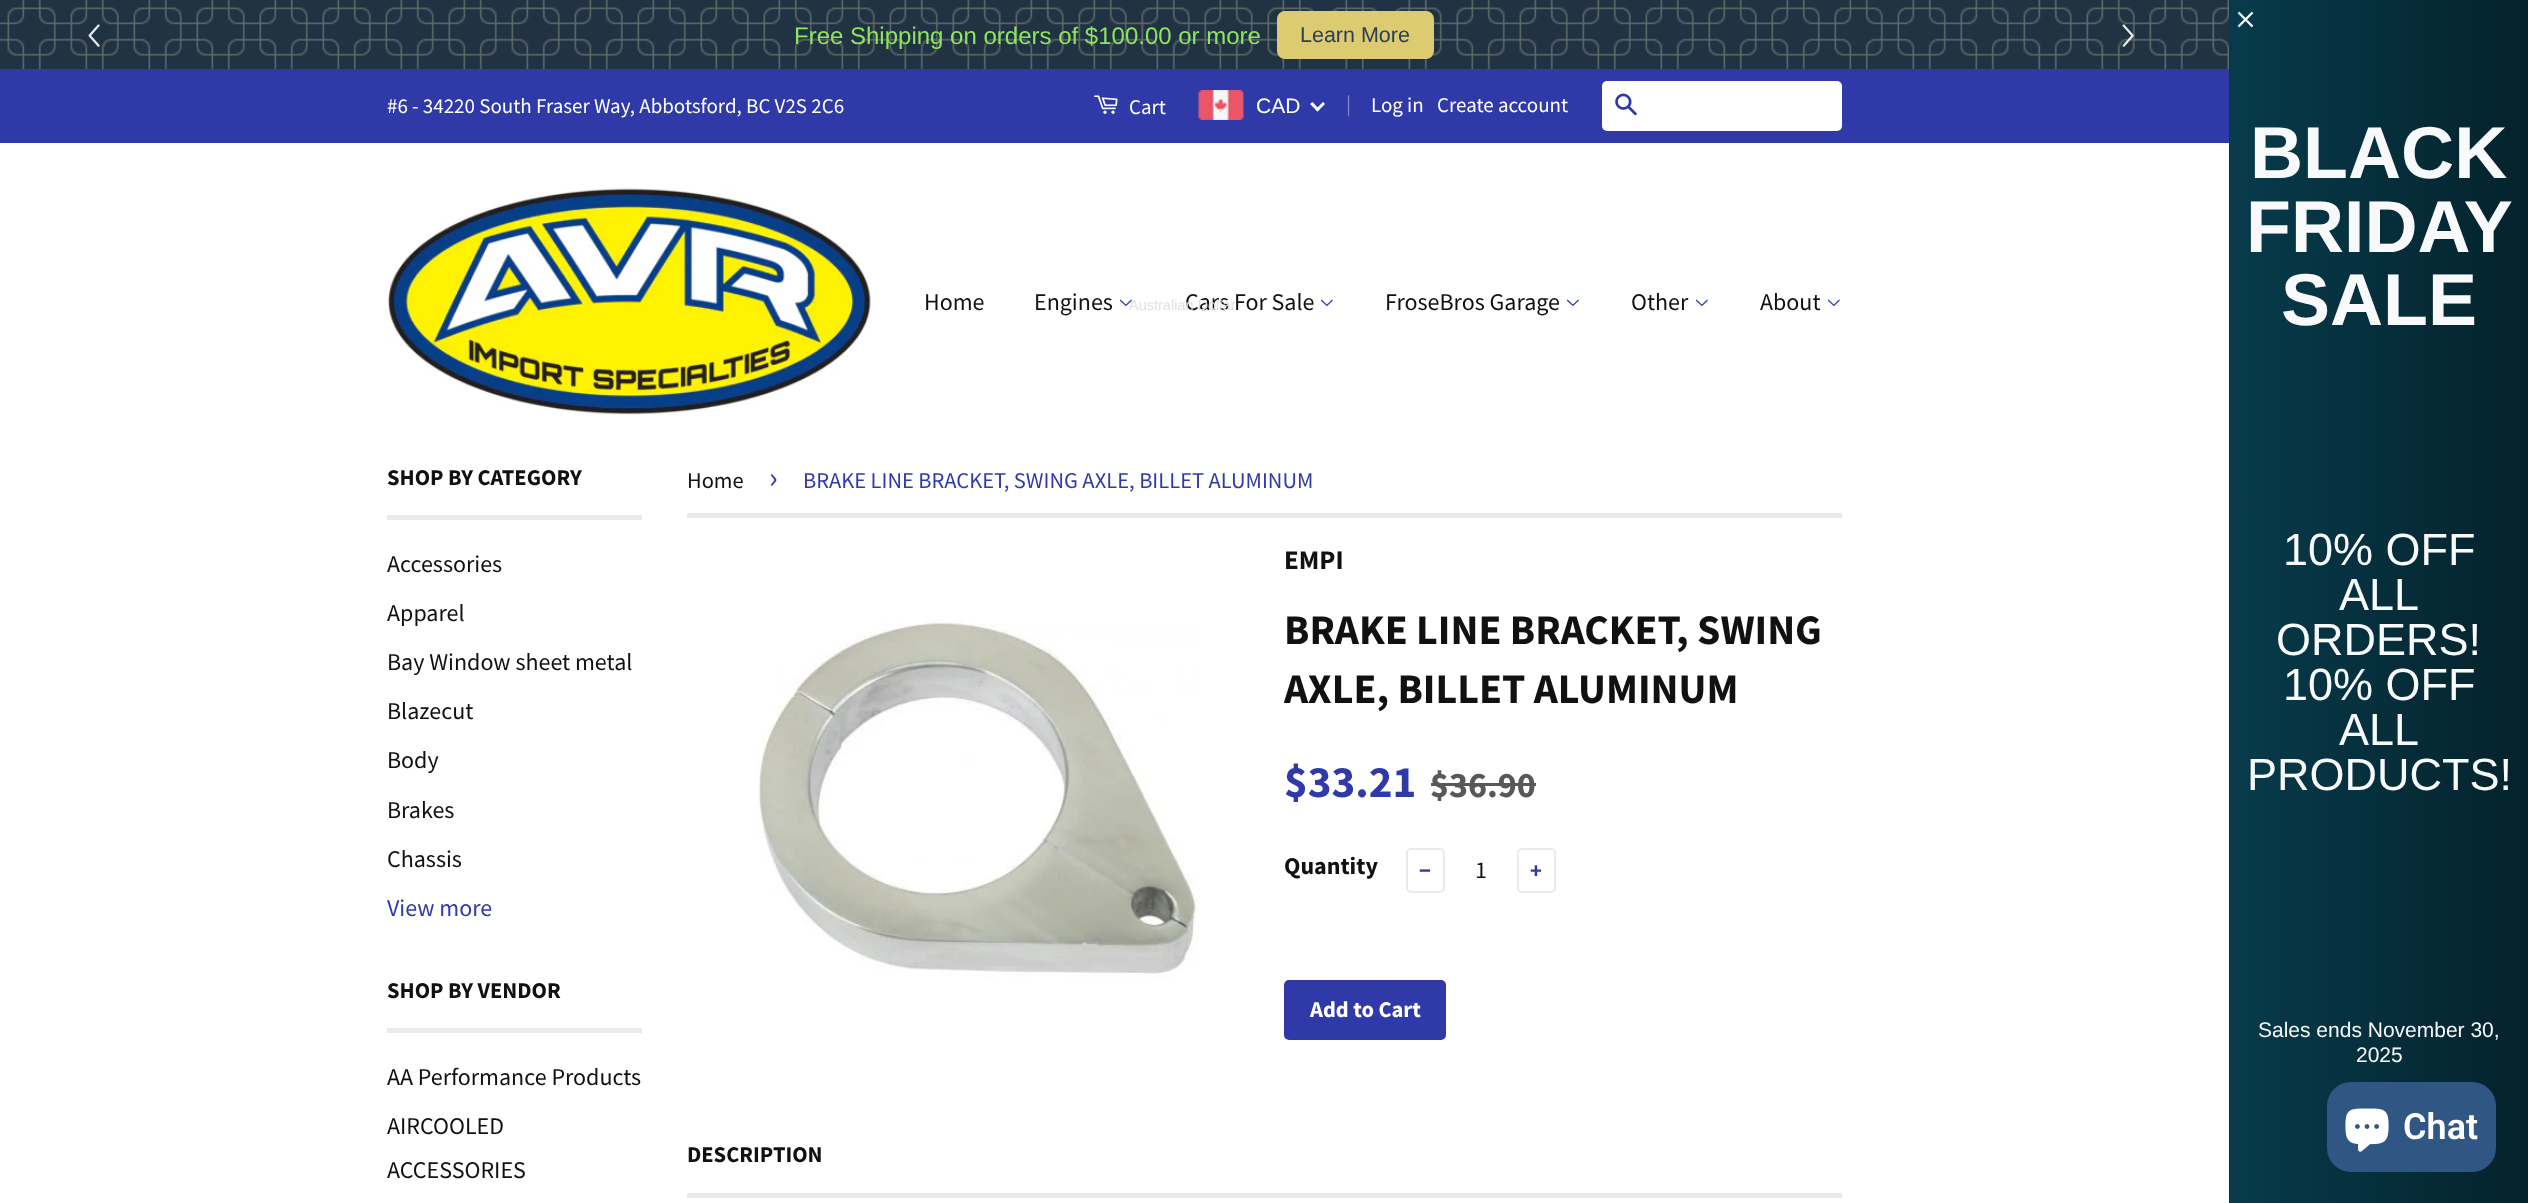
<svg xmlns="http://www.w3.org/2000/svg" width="2528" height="1203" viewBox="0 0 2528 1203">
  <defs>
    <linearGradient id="g1" gradientUnits="userSpaceOnUse" x1="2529" y1="602" x2="2229" y2="602"><stop offset="0" stop-color="#04222b"/><stop offset="1" stop-color="#073b4c"/></linearGradient>
  </defs>
  <rect width="100%" height="100%" fill="#fff"/>
  <image x="0" y="0" width="2229" height="69" href="img/2.png"/>
  <image x="88" y="24" width="12" height="23" href="img/1.png"/>
  <rect x="1278.5" y="12.5" width="154" height="45" rx="6.5" fill="#dccb70" stroke="#dccb70" stroke-width="3"/>
  <image x="2122" y="24" width="12" height="23" href="img/3.png"/>
  <path d="M0 69h2229v74H0z" fill="#2f39a8"/>
  <image x="1198" y="90" width="46" height="30" href="img/4.png"/>
  <path d="M1323 102L1325 104L1317.5 111.5L1315.5 109.5Z" fill="#fff"/>
  <path d="M1312.5 102L1319.5 109.5L1317.5 111.5L1310 104Z" fill="#fff"/>
  <rect x="1602" y="81" width="240" height="50" rx="5" fill="#fff"/>
  <image x="1615" y="93" width="22" height="23" href="img/5.png"/>
  <image x="1094" y="95" width="24" height="19" href="img/6.png"/>
  <path d="M2229 0h299v1203H2229z" fill="url(#g1)"/>
  <image x="2237" y="11" width="17" height="17" href="img/7.png"/>
  <image x="388" y="187" width="483" height="228" href="img/8.png"/>
  <image x="1119" y="299" width="13" height="8" href="img/9.png"/>
  <image x="1320" y="299" width="13" height="8" href="img/9.png"/>
  <image x="1566" y="299" width="13" height="8" href="img/9.png"/>
  <image x="1695" y="299" width="13" height="8" href="img/9.png"/>
  <image x="1827" y="299" width="13" height="8" href="img/9.png"/>
  <path d="M387 515h255v5H387z" fill="#eaeaea"/>
  <path d="M387 1028h255v5H387z" fill="#eaeaea"/>
  <path d="M687 513h1155v5H687z" fill="#eaeaea"/>
  <image x="758" y="620" width="442" height="359" href="img/10.png"/>
  <path d="M1431 783h105v3H1431z" fill="#585858"/>
  <rect x="1407" y="849" width="37" height="43" rx="4" fill="none" stroke="#eaeaea" stroke-width="2"/>
  <rect x="1518" y="849" width="37" height="43" rx="4" fill="none" stroke="#eaeaea" stroke-width="2"/>
  <rect x="1284" y="980" width="162" height="60" rx="5" fill="#2f39a8"/>
  <path d="M687 1193h1155v5H687z" fill="#eaeaea"/>
  <rect x="2327" y="1082" width="169" height="90" rx="24" fill="#305784"/>
  <image x="2345" y="1108" width="44" height="44" href="img/11.png"/>
  <text x="794" y="44" font-family="Liberation Sans" font-size="24" fill="#8ee561">Free Shipping on orders of $100.00 or more</text>
  <text x="1300" y="42" font-family="Liberation Sans" font-size="21.5" fill="#2c4053">Learn More</text>
  <text x="387" y="113" font-family="Source Sans Pro" font-size="21" fill="#fff">#6 - 34220 South Fraser Way, Abbotsford, BC V2S 2C6</text>
  <text x="1256" y="113" font-family="Liberation Sans" font-size="21" fill="#fff">CAD</text>
  <text x="1346" y="111" font-family="Source Sans Pro" font-size="21" fill="#8288cb">|</text>
  <g font-family="Source Sans Pro" font-size="21" fill="#fff">
    <text x="1371" y="112">Log in</text>
    <text x="1437" y="112">Create account</text>
    <text x="1129" y="114">Cart</text>
  </g>
  <g font-family="Liberation Sans" font-size="73.5" font-weight="bold" fill="#f8f9fa">
    <text x="2250" y="178">BLACK</text>
    <text x="2246" y="252">FRIDAY</text>
    <text x="2281" y="325">SALE</text>
  </g>
  <g font-family="Liberation Sans" font-size="45" fill="#f8f9fa">
    <text x="2283" y="565">10% OFF</text>
    <text x="2339" y="610">ALL</text>
    <text x="2276" y="655">ORDERS!</text>
    <text x="2283" y="700">10% OFF</text>
    <text x="2339" y="745">ALL</text>
    <text x="2247" y="790">PRODUCTS!</text>
  </g>
  <g font-family="Liberation Sans" font-size="21" fill="#f8f9fa">
    <text x="2258" y="1037">Sales ends November 30,</text>
    <text x="2356" y="1062">2025</text>
  </g>
  <g font-family="Source Sans Pro" font-size="24" fill="#111">
    <text x="924" y="310">Home</text>
    <text x="1034" y="310">Engines</text>
    <text x="1185" y="310">Cars For Sale</text>
  </g>
  <text x="1129" y="310" font-family="Liberation Sans" font-size="14.5" fill="#e0e0e0">Australian Dollar</text>
  <g font-family="Source Sans Pro" font-size="24" fill="#111">
    <text x="1385" y="310">FroseBros Garage</text>
    <text x="1631" y="310">Other</text>
    <text x="1760" y="310">About</text>
  </g>
  <text x="387" y="485" font-family="Source Sans Pro" font-size="22.5" font-weight="bold" fill="#111">SHOP BY CATEGORY</text>
  <g font-family="Source Sans Pro" font-size="24" fill="#111">
    <text x="387" y="572">Accessories</text>
    <text x="387" y="621">Apparel</text>
    <text x="387" y="670">Bay Window sheet metal</text>
    <text x="387" y="719">Blazecut</text>
    <text x="387" y="768">Body</text>
    <text x="387" y="818">Brakes</text>
    <text x="387" y="867">Chassis</text>
  </g>
  <text x="387" y="916" font-family="Source Sans Pro" font-size="24" fill="#2f39a8">View more</text>
  <text x="387" y="998" font-family="Source Sans Pro" font-size="22.5" font-weight="bold" fill="#111">SHOP BY VENDOR</text>
  <g font-family="Source Sans Pro" font-size="24" fill="#111">
    <text x="387" y="1085">AA Performance Products</text>
    <text x="387" y="1134">AIRCOOLED</text>
    <text x="387" y="1178">ACCESSORIES</text>
  </g>
  <text x="687" y="488" font-family="Source Sans Pro" font-size="22.5" fill="#111">Home</text>
  <text x="769" y="488" font-family="Source Sans Pro" font-size="32" fill="#2f39a8">›</text>
  <text x="803" y="488" font-family="Source Sans Pro" font-size="22.5" fill="#2f39a8">BRAKE LINE BRACKET, SWING AXLE, BILLET ALUMINUM</text>
  <text x="1284" y="569" font-family="Source Sans Pro" font-size="27" font-weight="bold" fill="#111">EMPI</text>
  <g font-family="Source Sans Pro" font-size="42" font-weight="bold" fill="#111">
    <text x="1284" y="644">BRAKE LINE BRACKET, SWING</text>
    <text x="1284" y="703">AXLE, BILLET ALUMINUM</text>
  </g>
  <text x="1284" y="797" font-family="Source Sans Pro" font-size="45" font-weight="bold" fill="#2f39a8">$33.21</text>
  <text x="1430" y="797" font-family="Source Sans Pro" font-size="36" font-weight="bold" fill="#585858">$36.90</text>
  <text x="1284" y="874" font-family="Source Sans Pro" font-size="24" font-weight="bold" fill="#111">Quantity</text>
  <text x="1419" y="878" font-family="Source Sans Pro" font-size="22.5" font-weight="bold" fill="#2f39a8">−</text>
  <text x="1475" y="878" font-family="Source Sans Pro" font-size="24" fill="#111">1</text>
  <text x="1530" y="878" font-family="Source Sans Pro" font-size="22.5" font-weight="bold" fill="#2f39a8">+</text>
  <text x="1310" y="1017" font-family="Source Sans Pro" font-size="22.5" font-weight="bold" fill="#fff">Add to Cart</text>
  <text x="687" y="1162" font-family="Source Sans Pro" font-size="22.5" font-weight="bold" fill="#111">DESCRIPTION</text>
  <text x="2403" y="1139" font-family="Roboto" font-size="36" font-weight="600" fill="#fff">Chat</text>
</svg>
